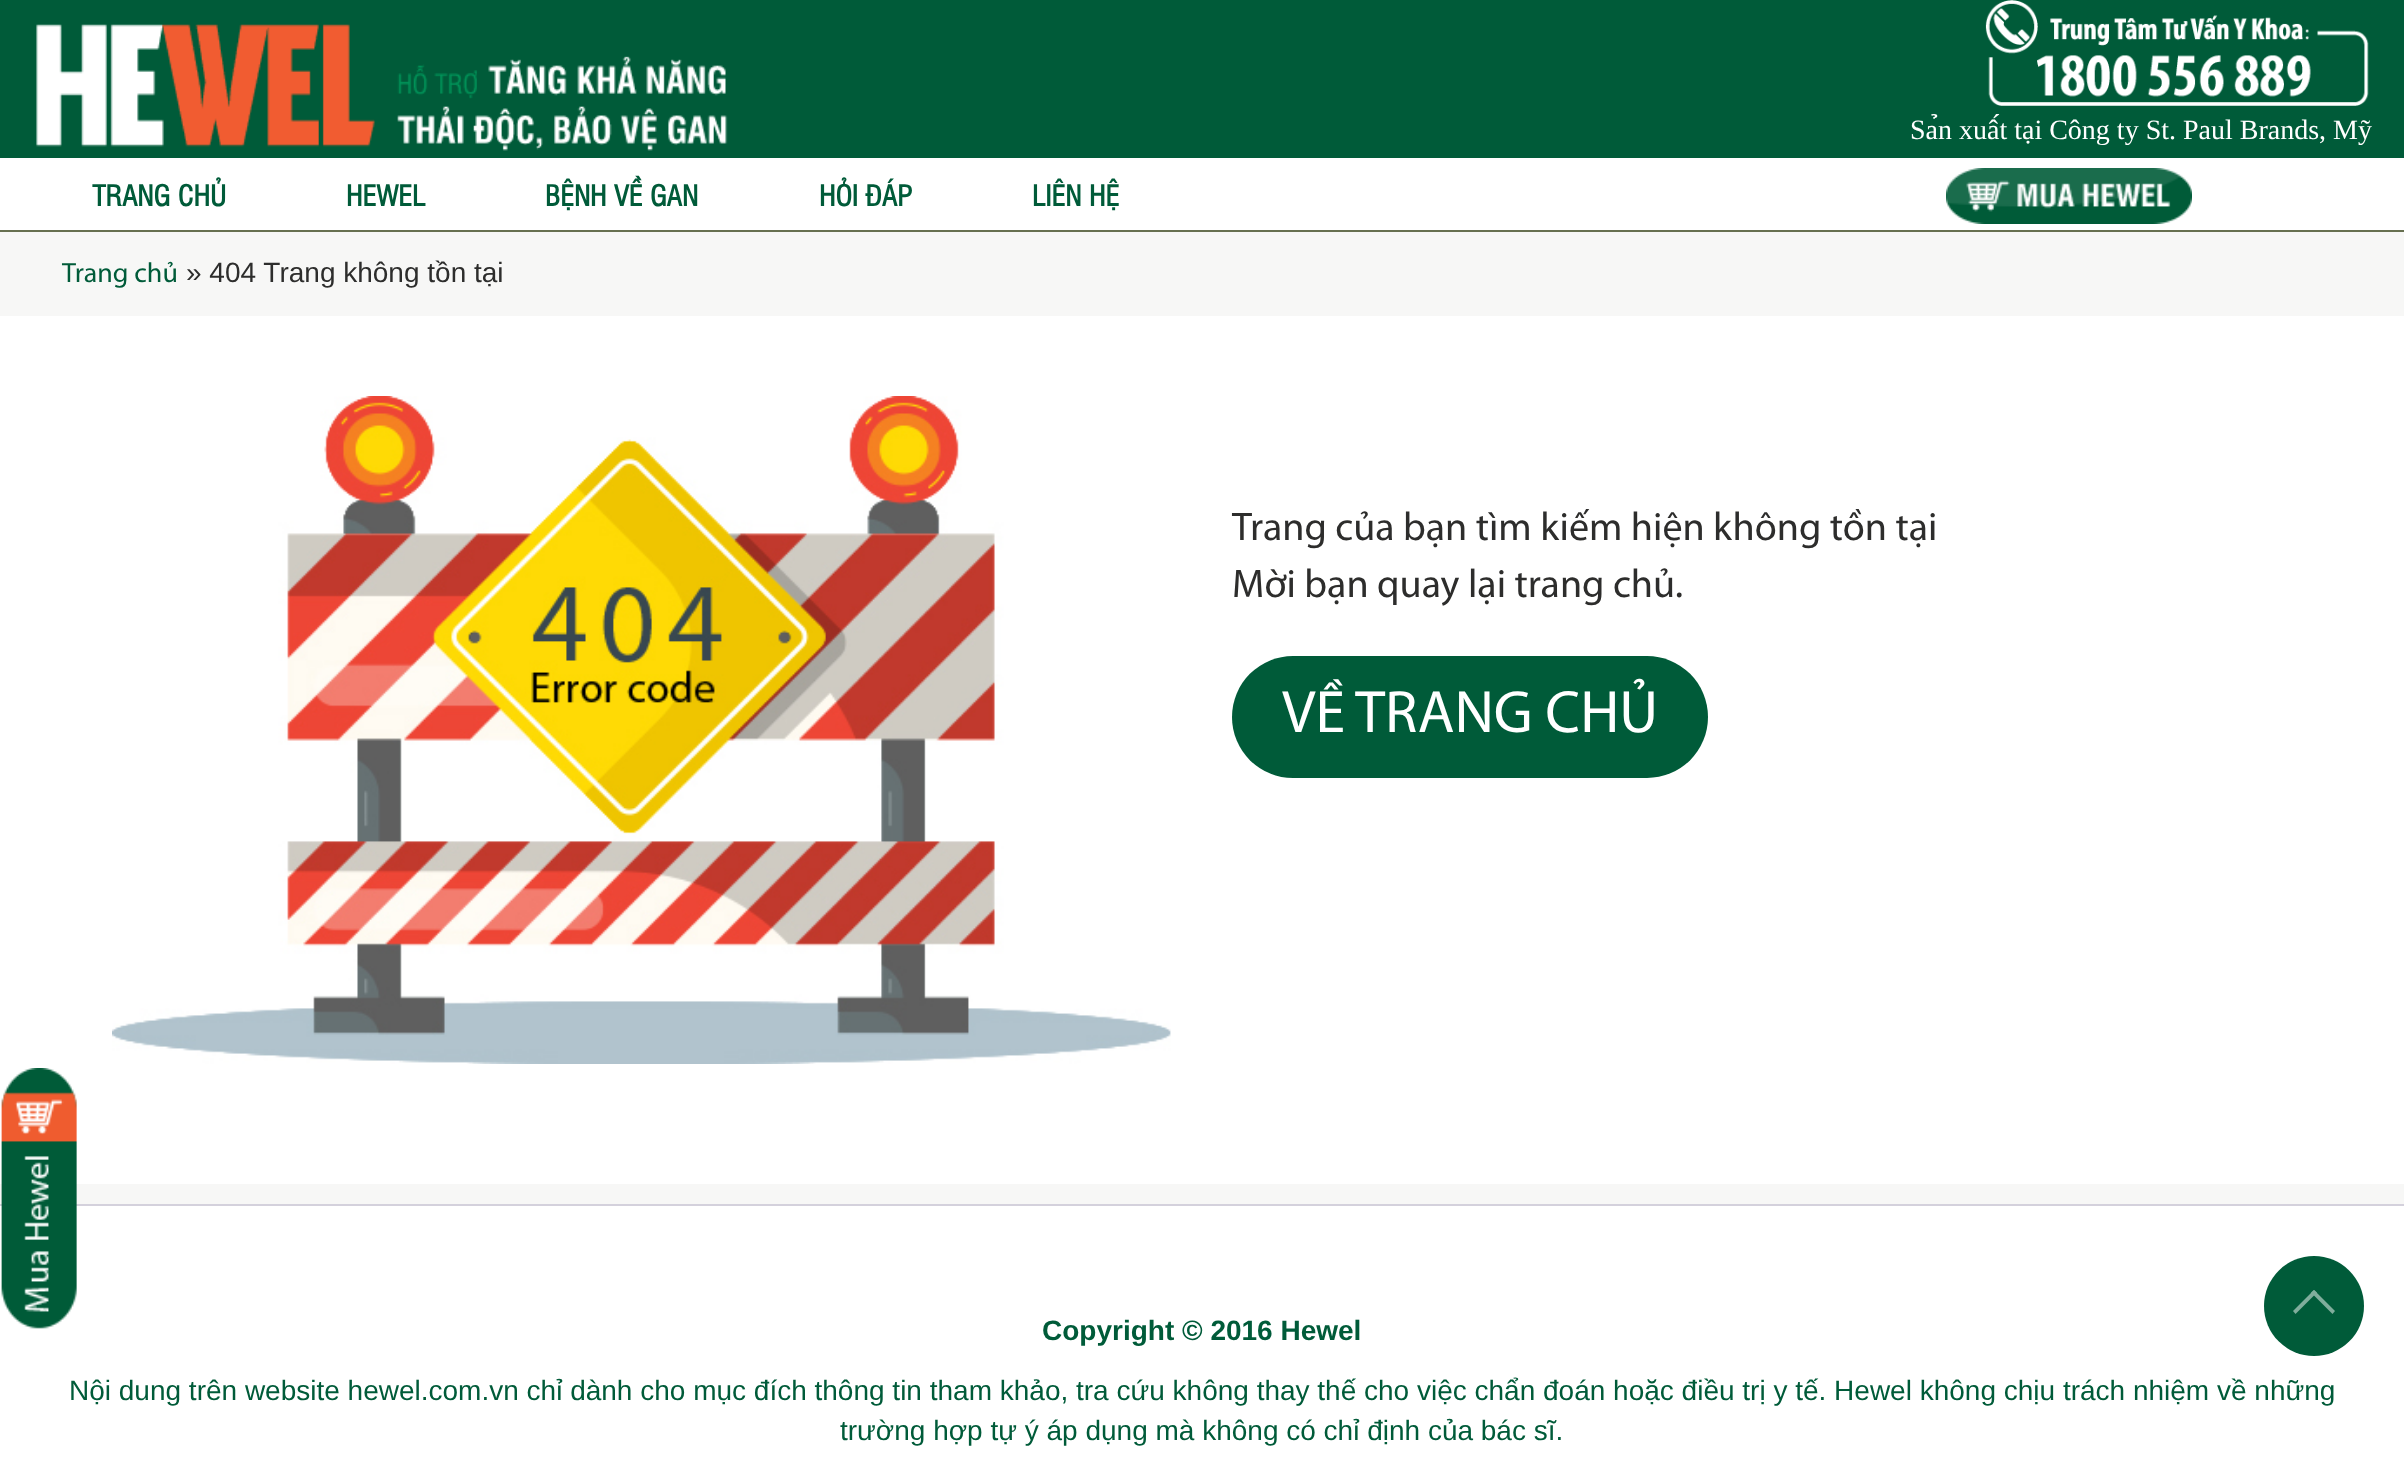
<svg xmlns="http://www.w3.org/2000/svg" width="2404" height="1476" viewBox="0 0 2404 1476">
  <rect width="100%" height="100%" fill="#f7f7f6"/>
  <path d="M0 0h2404v158H0z" fill="#005b39"/>
  <image x="36" y="24" width="692" height="127" href="img/1.png"/>
  <image x="1985" y="0" width="384" height="106" href="img/2.png"/>
  <path d="M0 158h2404v72H0z" fill="#fff"/>
  <path d="M0 230h2404v2H0z" fill="#677050"/>
  <image x="1946" y="168" width="246" height="56" href="img/3.png"/>
  <path d="M0 316h2404v868H0z" fill="#fff"/>
  <image x="112" y="396" width="1059" height="668" href="img/4.png"/>
  <rect x="1232" y="656" width="476" height="122" rx="61" fill="#005b39"/>
  <path d="M0 1206h2404v270H0z" fill="#fff"/>
  <path d="M0 1204h2404v2H0z" fill="#d4d1dc"/>
  <image x="1" y="1068" width="76" height="261" href="img/5.png"/>
  <circle cx="2314" cy="1306" r="50" fill="#005b39"/>
  <path d="M2293 1311L2314 1290L2317 1292.5L2295.5 1314Z" fill="#80ad9c"/>
  <path d="M2311 1292.5L2314 1290L2335 1311L2332.5 1314Z" fill="#80ad9c"/>
  <text x="1910" y="139" font-family="Liberation Serif" font-size="28" fill="#fff">Sản xuất tại Công ty St. Paul Brands, Mỹ</text>
  <g font-family="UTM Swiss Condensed" font-size="28" font-weight="bold" fill="#005b39">
    <text x="92" y="206">TRANG CHỦ</text>
    <text x="346" y="206">HEWEL</text>
    <text x="545" y="206">BỆNH VỀ GAN</text>
    <text x="819" y="206">HỎI ĐÁP</text>
    <text x="1032" y="206">LIÊN HỆ</text>
  </g>
  <text x="62" y="282" font-family="Myriad" font-size="28" fill="#005b39">Trang chủ</text>
  <text x="186" y="282" font-family="Liberation Sans" font-size="28" fill="#2d2d2c">» 404 Trang không tồn tại</text>
  <g font-family="Myriad" font-size="40" fill="#2d2d2c">
    <text x="1232" y="540">Trang của bạn tìm kiếm hiện không tồn tại</text>
    <text x="1232" y="597">Mời bạn quay lại trang chủ.</text>
  </g>
  <text x="1282" y="732" font-family="Myriad" font-size="60" fill="#fff">VỀ TRANG CHỦ</text>
  <text x="1042" y="1340" font-family="Liberation Sans" font-size="28" font-weight="bold" fill="#005b39">Copyright © 2016 Hewel</text>
  <g font-family="Liberation Sans" font-size="28" fill="#005b39">
    <text x="69" y="1400">Nội dung trên website hewel.com.vn chỉ dành cho mục đích thông tin tham khảo, tra cứu không thay thế cho việc chẩn đoán hoặc điều trị y tế. Hewel không chịu trách nhiệm về những</text>
    <text x="840" y="1440">trường hợp tự ý áp dụng mà không có chỉ định của bác sĩ.</text>
  </g>
</svg>
